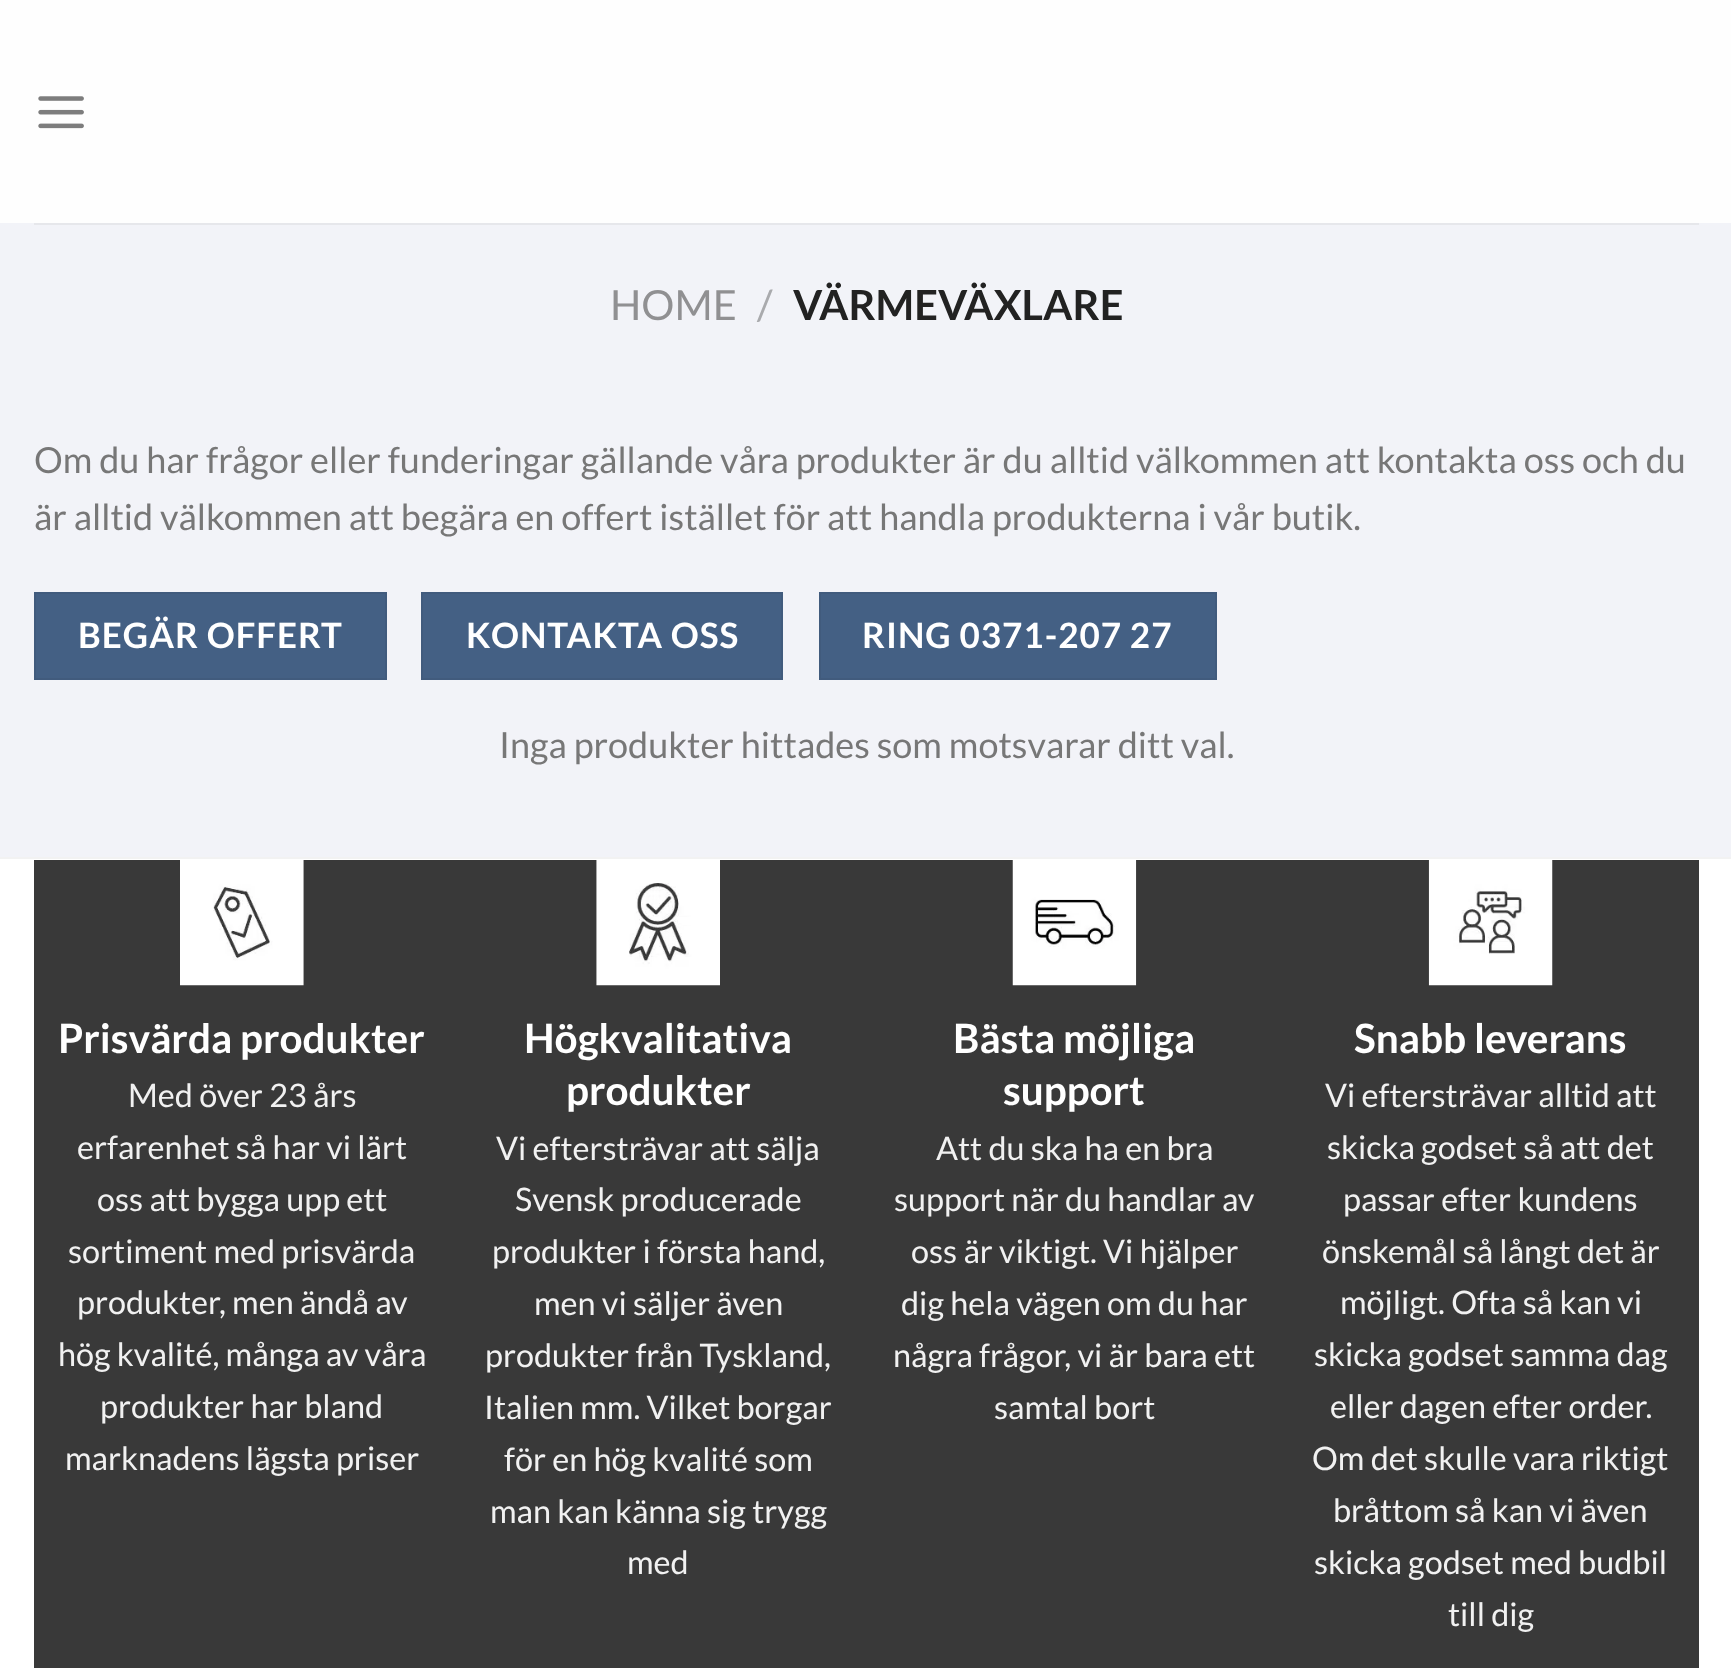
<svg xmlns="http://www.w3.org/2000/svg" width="1731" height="1668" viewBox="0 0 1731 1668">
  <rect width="100%" height="100%" fill="#f2f3f8"/>
  <path d="M0 0h1731v223H0z" fill="#fefefe"/>
  <image x="38" y="96" width="46" height="33" href="img/1.png"/>
  <path d="M34 223h1665v2H34z" fill="#e6e7eb"/>
  <path d="M35 593h351v86H35z" fill="#446084" stroke="#415b7d" stroke-width="2"/>
  <path d="M422 593h360v86H422z" fill="#446084" stroke="#415b7d" stroke-width="2"/>
  <path d="M820 593h396v86H820z" fill="#446084" stroke="#415b7d" stroke-width="2"/>
  <path d="M0 859h1731v809H0z" fill="#fff"/>
  <path d="M0 857h1731v2H0z" fill="#f2f2f2"/>
  <path d="M34 860h1665v808H34z" fill="#393939"/>
  <image x="180" y="860" width="124" height="126" href="img/2.png"/>
  <image x="596" y="860" width="124" height="126" href="img/3.png"/>
  <image x="1012" y="860" width="125" height="126" href="img/4.png"/>
  <image x="1428" y="860" width="125" height="126" href="img/5.png"/>
  <text x="610" y="320" font-family="Lato" font-size="41.5" fill="#909092">HOME</text>
  <text x="757" y="320" font-family="Lato" font-size="41.5" fill="#a9aaad">/</text>
  <text x="793" y="320" font-family="Lato" font-size="41.5" font-weight="bold" fill="#222">VÄRMEVÄXLARE</text>
  <g font-family="Lato" font-size="36" fill="#777">
    <text x="34" y="473">Om du har frågor eller funderingar gällande våra produkter är du alltid välkommen att kontakta oss och du</text>
    <text x="34" y="530">är alltid välkommen att begära en offert istället för att handla produkterna i vår butik.</text>
  </g>
  <g font-family="Lato" font-size="35" font-weight="bold" letter-spacing="1" fill="#fff">
    <text x="78" y="648">BEGÄR OFFERT</text>
    <text x="466" y="648">KONTAKTA OSS</text>
    <text x="862" y="648">RING 0371-207 27</text>
  </g>
  <text x="499" y="758" font-family="Lato" font-size="36" fill="#777">Inga produkter hittades som motsvarar ditt val.</text>
  <text x="58" y="1053" font-family="Lato" font-size="40.5" font-weight="bold" fill="#fff">Prisvärda produkter</text>
  <g font-family="Lato" font-size="32.4" fill="#f1f1f1">
    <text x="128" y="1107">Med över 23 års</text>
    <text x="77" y="1159">erfarenhet så har vi lärt</text>
    <text x="97" y="1211">oss att bygga upp ett</text>
    <text x="68" y="1263">sortiment med prisvärda</text>
    <text x="77" y="1314">produkter, men ändå av</text>
    <text x="58" y="1366">hög kvalité, många av våra</text>
    <text x="100" y="1418">produkter har bland</text>
    <text x="65" y="1470">marknadens lägsta priser</text>
  </g>
  <g font-family="Lato" font-size="40.5" font-weight="bold" fill="#fff">
    <text x="524" y="1053">Högkvalitativa</text>
    <text x="566" y="1105">produkter</text>
  </g>
  <g font-family="Lato" font-size="32.4" fill="#f1f1f1">
    <text x="496" y="1160">Vi eftersträvar att sälja</text>
    <text x="515" y="1211">Svensk producerade</text>
    <text x="492" y="1263">produkter i första hand,</text>
    <text x="534" y="1315">men vi säljer även</text>
    <text x="485" y="1367">produkter från Tyskland,</text>
    <text x="484" y="1419">Italien mm. Vilket borgar</text>
    <text x="504" y="1471">för en hög kvalité som</text>
    <text x="490" y="1523">man kan känna sig trygg</text>
    <text x="627" y="1574">med</text>
  </g>
  <g font-family="Lato" font-size="40.5" font-weight="bold" fill="#fff">
    <text x="953" y="1053">Bästa möjliga</text>
    <text x="1003" y="1105">support</text>
  </g>
  <g font-family="Lato" font-size="32.4" fill="#f1f1f1">
    <text x="936" y="1160">Att du ska ha en bra</text>
    <text x="894" y="1211">support när du handlar av</text>
    <text x="911" y="1263">oss är viktigt. Vi hjälper</text>
    <text x="901" y="1315">dig hela vägen om du har</text>
    <text x="893" y="1367">några frågor, vi är bara ett</text>
    <text x="994" y="1419">samtal bort</text>
  </g>
  <text x="1354" y="1053" font-family="Lato" font-size="40.5" font-weight="bold" fill="#fff">Snabb leverans</text>
  <g font-family="Lato" font-size="32.4" fill="#f1f1f1">
    <text x="1325" y="1107">Vi eftersträvar alltid att</text>
    <text x="1327" y="1159">skicka godset så att det</text>
    <text x="1343" y="1211">passar efter kundens</text>
    <text x="1322" y="1263">önskemål så långt det är</text>
    <text x="1340" y="1314">möjligt. Ofta så kan vi</text>
    <text x="1314" y="1366">skicka godset samma dag</text>
    <text x="1330" y="1418">eller dagen efter order.</text>
    <text x="1312" y="1470">Om det skulle vara riktigt</text>
    <text x="1333" y="1522">bråttom så kan vi även</text>
    <text x="1314" y="1574">skicka godset med budbil</text>
    <text x="1448" y="1626">till dig</text>
  </g>
</svg>
